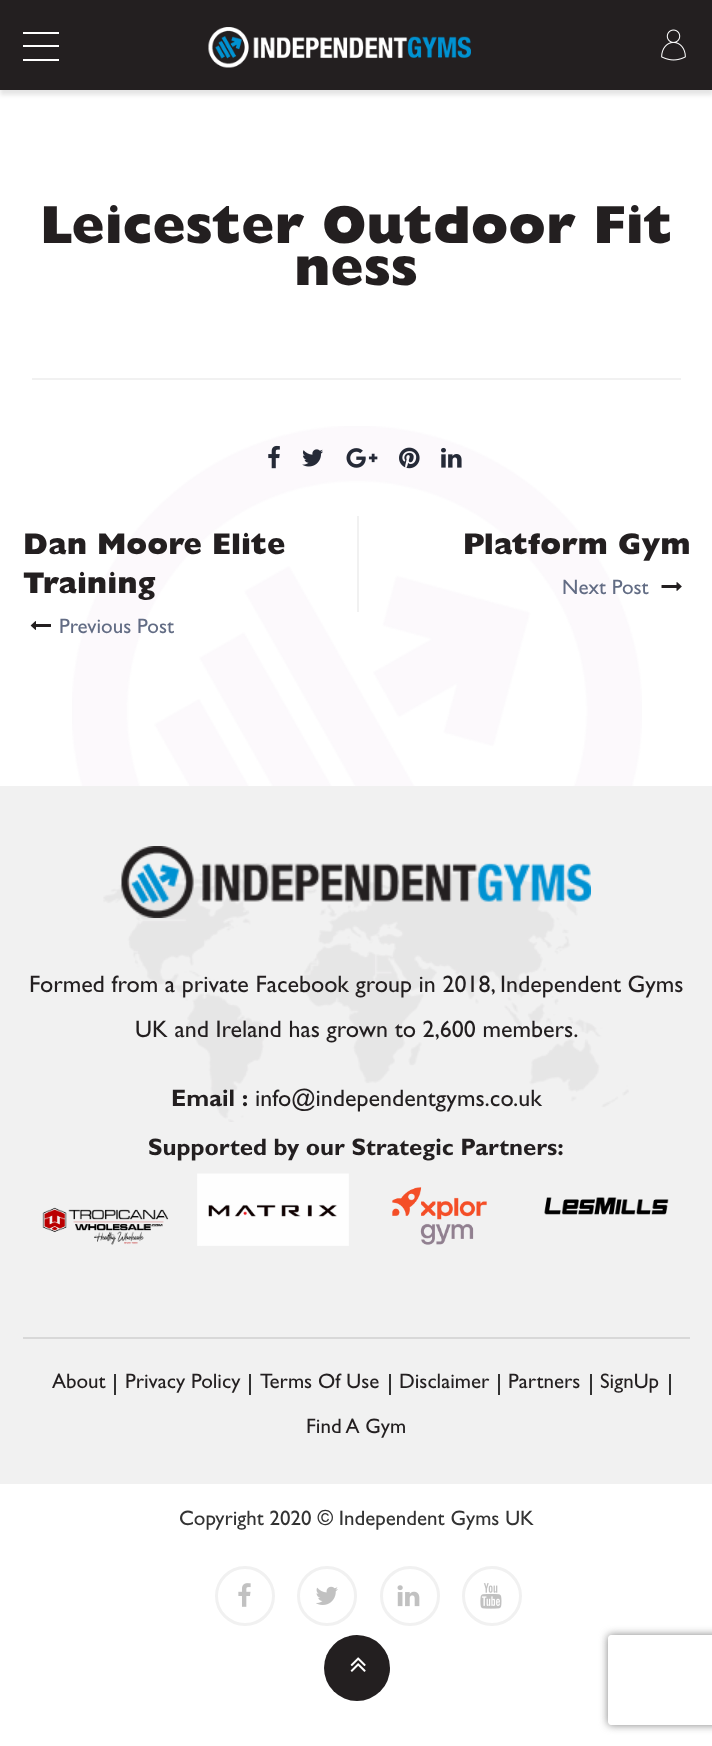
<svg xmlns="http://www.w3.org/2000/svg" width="712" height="1746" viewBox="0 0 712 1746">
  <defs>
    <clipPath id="clip1"><path d="M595 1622H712V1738H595ZM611 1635H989C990.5 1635 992 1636.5 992 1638V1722C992 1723.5 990.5 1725 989 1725H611C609.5 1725 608 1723.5 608 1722V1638C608 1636.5 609.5 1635 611 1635Z" clip-rule="evenodd"/></clipPath>
  </defs>
  <rect width="100%" height="100%" fill="#fff"/>
  <path d="M0 5h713v90H0z" fill="#0000001a" filter="blur(2px)"/>
  <path d="M0 0h712v90H0z" fill="#231f20"/>
  <path d="M23 32h36v2H23z" fill="#fff"/>
  <path d="M23 45h36v2H23z" fill="#fff"/>
  <path d="M23 59h36v2H23z" fill="#fff"/>
  <image x="208" y="27" width="263" height="41" href="img/1.png"/>
  <image x="661" y="29" width="25" height="32" href="img/2.png"/>
  <path d="M32 378h649v2H32z" fill="#f1f1f1"/>
  <image x="72" y="426" width="570" height="360" href="img/21.png"/>
  <image x="268" y="445" width="12" height="24" href="img/3.png"/>
  <image x="302" y="449" width="21" height="18" href="img/4.png"/>
  <image x="346" y="448" width="32" height="20" href="img/5.png"/>
  <image x="399" y="447" width="21" height="22" href="img/6.png"/>
  <image x="441" y="447" width="21" height="21" href="img/7.png"/>
  <image x="30" y="621" width="21" height="9" href="img/8.png"/>
  <path d="M357 516h2v96H357z" fill="#f1f1f1"/>
  <image x="661" y="582" width="21" height="9" href="img/9.png"/>
  <path d="M0 786h712v698H0z" fill="#f1f1f1"/>
  <image x="103" y="863" width="526" height="259" href="img/10.png"/>
  <image x="121" y="846" width="470" height="72" href="img/11.png"/>
  <image x="42" y="1207" width="127" height="38" href="img/12.png"/>
  <image x="197" y="1173" width="152" height="73" href="img/13.png"/>
  <image x="392" y="1187" width="95" height="58" href="img/14.png"/>
  <image x="544" y="1197" width="125" height="18" href="img/15.png"/>
  <path d="M23 1337h667v2H23z" fill="#d8d8d8"/>
  <path d="M114 1374h2v21H114z" fill="#333"/>
  <path d="M249 1374h2v21H249z" fill="#333"/>
  <path d="M389 1374h2v21H389z" fill="#333"/>
  <path d="M498 1374h2v21H498z" fill="#333"/>
  <path d="M590 1374h2v21H590z" fill="#333"/>
  <path d="M669 1374h2v21H669z" fill="#333"/>
  <circle cx="245" cy="1596" r="28.5" fill="none" stroke="#f1f1f1" stroke-width="3"/>
  <image x="238" y="1583" width="13" height="24" href="img/16.png"/>
  <circle cx="327" cy="1596" r="28.5" fill="none" stroke="#f1f1f1" stroke-width="3"/>
  <image x="316" y="1586" width="22" height="19" href="img/17.png"/>
  <circle cx="410" cy="1596" r="28.5" fill="none" stroke="#f1f1f1" stroke-width="3"/>
  <image x="397" y="1585" width="23" height="22" href="img/18.png"/>
  <circle cx="492" cy="1596" r="28.5" fill="none" stroke="#f1f1f1" stroke-width="3"/>
  <image x="480" y="1583" width="22" height="26" href="img/19.png"/>
  <circle cx="357" cy="1668" r="33" fill="#231f20"/>
  <image x="350" y="1657" width="16" height="15" href="img/20.png"/>
  <g clip-path="url(#clip1)">
    <rect x="608" y="1635" width="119" height="90" rx="3" fill="#808080" filter="blur(4px)"/>
  </g>
  <g font-family="Gill Sans" font-size="54" font-weight="800" fill="#231f20">
    <text x="40" y="243">Leicester Outdoor Fit</text>
    <text x="294" y="285">ness</text>
  </g>
  <g font-family="Gill Sans" font-size="30" font-weight="800" fill="#231f20">
    <text x="23" y="554">Dan Moore Elite</text>
    <text x="23" y="593">Training</text>
  </g>
  <text x="59" y="633" font-family="Gill Sans" font-size="21" fill="#626c84">Previous Post</text>
  <text x="463" y="554" font-family="Gill Sans" font-size="30" font-weight="800" fill="#231f20">Platform Gym</text>
  <text x="562" y="594" font-family="Gill Sans" font-size="21" fill="#626c84">Next Post</text>
  <g font-family="Gill Sans" font-size="24" fill="#231f20">
    <text x="29" y="992">Formed from a private Facebook group in 2018, Independent Gyms</text>
    <text x="135" y="1037">UK and Ireland has grown to 2,600 members.</text>
  </g>
  <text x="171" y="1106" font-family="Gill Sans" font-size="24" font-weight="bold" fill="#231f20">Email :</text>
  <text x="255" y="1106" font-family="Gill Sans" font-size="24" fill="#231f20">info@independentgyms.co.uk</text>
  <text x="148" y="1155" font-family="Gill Sans" font-size="24" font-weight="bold" fill="#231f20">Supported by our Strategic Partners:</text>
  <g font-family="Gill Sans" font-size="21" fill="#231f20">
    <text x="52" y="1388">About</text>
    <text x="125" y="1388">Privacy Policy</text>
    <text x="260" y="1388">Terms Of Use</text>
    <text x="399" y="1388">Disclaimer</text>
    <text x="508" y="1388">Partners</text>
    <text x="600" y="1388">SignUp</text>
    <text x="306" y="1433">Find A Gym</text>
  </g>
  <text x="179" y="1525" font-family="Gill Sans" font-size="21" fill="#333">Copyright 2020 © Independent Gyms UK</text>
</svg>
